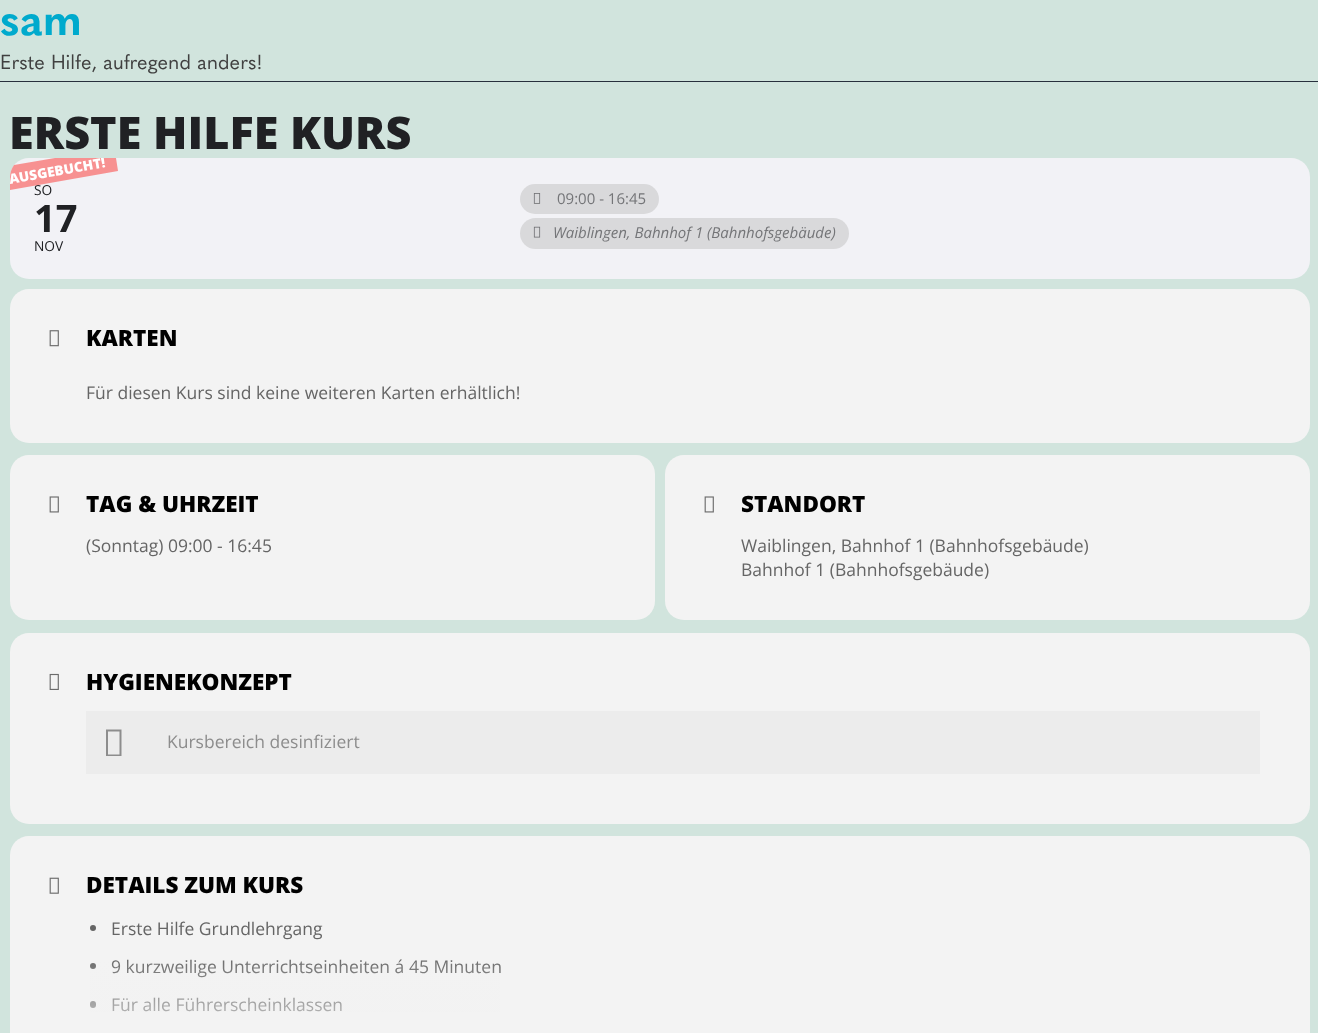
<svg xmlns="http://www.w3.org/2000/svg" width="1318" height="1033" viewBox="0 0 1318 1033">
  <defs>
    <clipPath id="clip1"><rect x="10" y="158" width="1300" height="121" rx="19"/></clipPath>
    <linearGradient id="g1" gradientUnits="userSpaceOnUse" x1="679" y1="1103" x2="679" y2="915"><stop offset="0.2" stop-color="#f2f2f2"/><stop offset="0.8" stop-color="#f2f2f2" stop-opacity="0"/></linearGradient>
  </defs>
  <rect width="100%" height="100%" fill="#d1e4dd"/>
  <path d="M0 81h1318v1H0z" fill="#28303d"/>
  <rect x="10" y="158" width="1300" height="121" rx="19" fill="#f2f2f6"/>
  <rect x="520" y="184" width="139" height="30" rx="15" fill="#d9d9db"/>
  <image x="533" y="193" width="8" height="11" href="img/1.png"/>
  <rect x="520" y="218" width="329" height="31" rx="15.5" fill="#d9d9db"/>
  <image x="533" y="226" width="8" height="12" href="img/2.png"/>
  <rect x="10" y="289" width="1300" height="154" rx="19" fill="#f3f3f3"/>
  <image x="49" y="330" width="10" height="17" href="img/3.png"/>
  <rect x="10" y="455" width="645" height="165" rx="19" fill="#f3f3f3"/>
  <image x="49" y="496" width="10" height="17" href="img/4.png"/>
  <rect x="665" y="455" width="645" height="165" rx="19" fill="#f3f3f3"/>
  <image x="704" y="496" width="10" height="17" href="img/4.png"/>
  <rect x="10" y="633" width="1300" height="191" rx="19" fill="#f3f3f3"/>
  <image x="49" y="673" width="10" height="17" href="img/5.png"/>
  <path d="M86 711h1174v63H86z" fill="#ececec"/>
  <path d="M106 756V729.5H121.5V756ZM108 754.5H119.5V731.5H108Z" fill="#8d8d8d"/>
  <rect x="10" y="836" width="1300" height="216" rx="19" fill="#f3f3f3"/>
  <image x="49" y="877" width="10" height="17" href="img/6.png"/>
  <circle cx="93" cy="928" r="3" fill="#656565"/>
  <circle cx="93" cy="966" r="3" fill="#656565"/>
  <rect x="90" y="1001" width="6" height="7" rx="3" fill="#656565"/>
  <text x="0" y="35" font-family="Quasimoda" font-size="45" font-weight="bold" fill="#00aacd">sam</text>
  <text x="0" y="69" font-family="Quasimoda" font-size="20" fill="#404040">Erste Hilfe, aufregend anders!</text>
  <text x="9" y="149" font-family="Open Sans" font-size="45" font-weight="800" fill="#202124">ERSTE HILFE KURS</text>
  <text x="34" y="195" font-family="Open Sans" font-size="13.75" fill="#202124">SO</text>
  <path d="M10 190L118 171L116 158H55L14 165C12 168 10 172 10 177Z" fill="#f79191"/>
  <g clip-path="url(#clip1)">
    <text x="10" y="184" transform="rotate(-10 10 184)" font-family="Open Sans" font-size="13.75" font-weight="800" fill="#fff">AUSGEBUCHT!</text>
  </g>
  <text x="34" y="232" font-family="Open Sans" font-size="38" font-weight="bold" fill="#202124">17</text>
  <text x="34" y="251" font-family="Open Sans" font-size="13.75" fill="#202124">NOV</text>
  <text x="557" y="204" font-family="Open Sans" font-size="15" fill="#747578">09:00 - 16:45</text>
  <text x="553" y="238" font-family="Open Sans" font-size="15" font-style="italic" fill="#747578">Waiblingen, Bahnhof 1 (Bahnhofsgebäude)</text>
  <text x="86" y="346" font-family="Open Sans" font-size="22.5" font-weight="800" fill="#000">KARTEN</text>
  <text x="86" y="399" font-family="Open Sans" font-size="17.5" fill="#656565">Für diesen Kurs sind keine weiteren Karten erhältlich!</text>
  <text x="86" y="512" font-family="Open Sans" font-size="22.5" font-weight="800" fill="#000">TAG &amp; UHRZEIT</text>
  <text x="86" y="552" font-family="Open Sans" font-size="17.5" fill="#656565">(Sonntag) 09:00 - 16:45</text>
  <text x="741" y="512" font-family="Open Sans" font-size="22.5" font-weight="800" fill="#000">STANDORT</text>
  <g font-family="Open Sans" font-size="17.5" fill="#656565">
    <text x="741" y="552">Waiblingen, Bahnhof 1 (Bahnhofsgebäude)</text>
    <text x="741" y="576">Bahnhof 1 (Bahnhofsgebäude)</text>
  </g>
  <text x="86" y="690" font-family="Open Sans" font-size="22.5" font-weight="800" fill="#000">HYGIENEKONZEPT</text>
  <text x="167" y="748" font-family="Open Sans" font-size="17.5" fill="#8d8d8d">Kursbereich desinfiziert</text>
  <text x="86" y="893" font-family="Open Sans" font-size="22.5" font-weight="800" fill="#000">DETAILS ZUM KURS</text>
  <g font-family="Open Sans" font-size="17.5" fill="#656565">
    <text x="111" y="935">Erste Hilfe Grundlehrgang</text>
    <text x="111" y="973">9 kurzweilige Unterrichtseinheiten á 45 Minuten</text>
    <text x="111" y="1011">Für alle Führerscheinklassen</text>
  </g>
  <path d="M90 959h410v53H90z" fill="url(#g1)"/>
</svg>
